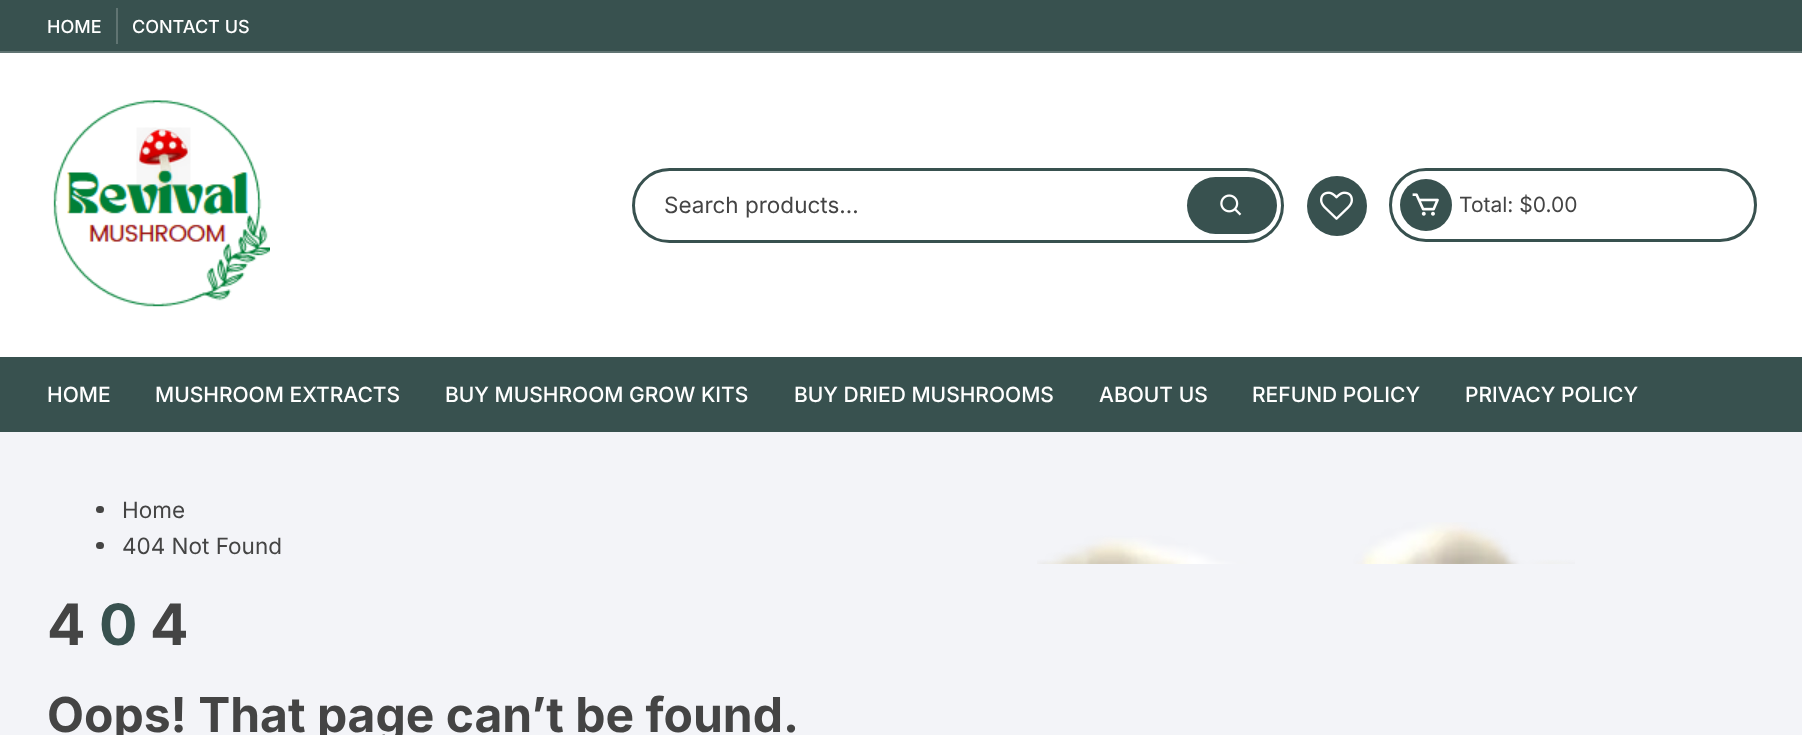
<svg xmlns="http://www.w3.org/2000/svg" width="1802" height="735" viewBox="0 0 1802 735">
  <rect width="100%" height="100%" fill="#f3f4f8"/>
  <path d="M0 53h1802v304H0z" fill="#fff"/>
  <path d="M0 0h1802v51H0z" fill="#38514f"/>
  <path d="M0 51h1802v2H0z" fill="#607472"/>
  <path d="M116 8h2v36H116z" fill="#607472"/>
  <image x="53" y="100" width="217" height="207" href="img/1.png"/>
  <rect x="633.5" y="169.5" width="649" height="72" rx="36" fill="none" stroke="#38514f" stroke-width="3"/>
  <rect x="1187" y="177" width="90" height="57" rx="28.5" fill="#38514f"/>
  <image x="1220" y="194" width="22" height="22" href="img/2.png"/>
  <circle cx="1337" cy="206" r="30" fill="#38514f"/>
  <image x="1320" y="191" width="33" height="29" href="img/3.png"/>
  <rect x="1390.5" y="169.5" width="365" height="71" rx="35.5" fill="none" stroke="#38514f" stroke-width="3"/>
  <circle cx="1426" cy="205" r="26" fill="#38514f"/>
  <image x="1412" y="193" width="27" height="23" href="img/4.png"/>
  <path d="M0 357h1802v75H0z" fill="#38514f"/>
  <image x="1037" y="522" width="538" height="42" href="img/5.png"/>
  <rect x="96" y="506" width="8" height="7" rx="3.5" fill="#444"/>
  <rect x="96" y="542" width="8" height="7" rx="3.5" fill="#444"/>
  <g font-family="Inter" font-size="18" font-weight="500" fill="#fff">
    <text x="47" y="33">HOME</text>
    <text x="132" y="33">CONTACT US</text>
  </g>
  <text x="664" y="213" font-family="Inter" font-size="22.5" fill="#444">Search products…</text>
  <text x="1459" y="212" font-family="Inter" font-size="21" fill="#444">Total: $0.00</text>
  <g font-family="Inter" font-size="21" font-weight="500" fill="#fff">
    <text x="47" y="402">HOME</text>
    <text x="155" y="402">MUSHROOM EXTRACTS</text>
    <text x="445" y="402">BUY MUSHROOM GROW KITS</text>
    <text x="794" y="402">BUY DRIED MUSHROOMS</text>
    <text x="1099" y="402">ABOUT US</text>
    <text x="1252" y="402">REFUND POLICY</text>
    <text x="1465" y="402">PRIVACY POLICY</text>
  </g>
  <g font-family="Inter" font-size="22.5" fill="#444">
    <text x="122" y="518">Home</text>
    <text x="122" y="554">404 Not Found</text>
  </g>
  <text x="47" y="645" font-family="Inter" font-size="57" font-weight="bold" fill="#444">4</text>
  <text x="99" y="645" font-family="Inter" font-size="57" font-weight="bold" fill="#38514f">0</text>
  <text x="150" y="645" font-family="Inter" font-size="57" font-weight="bold" fill="#444">4</text>
  <text x="47" y="732" font-family="Inter" font-size="48" font-weight="bold" fill="#444">Oops! That page can’t be found.</text>
</svg>
